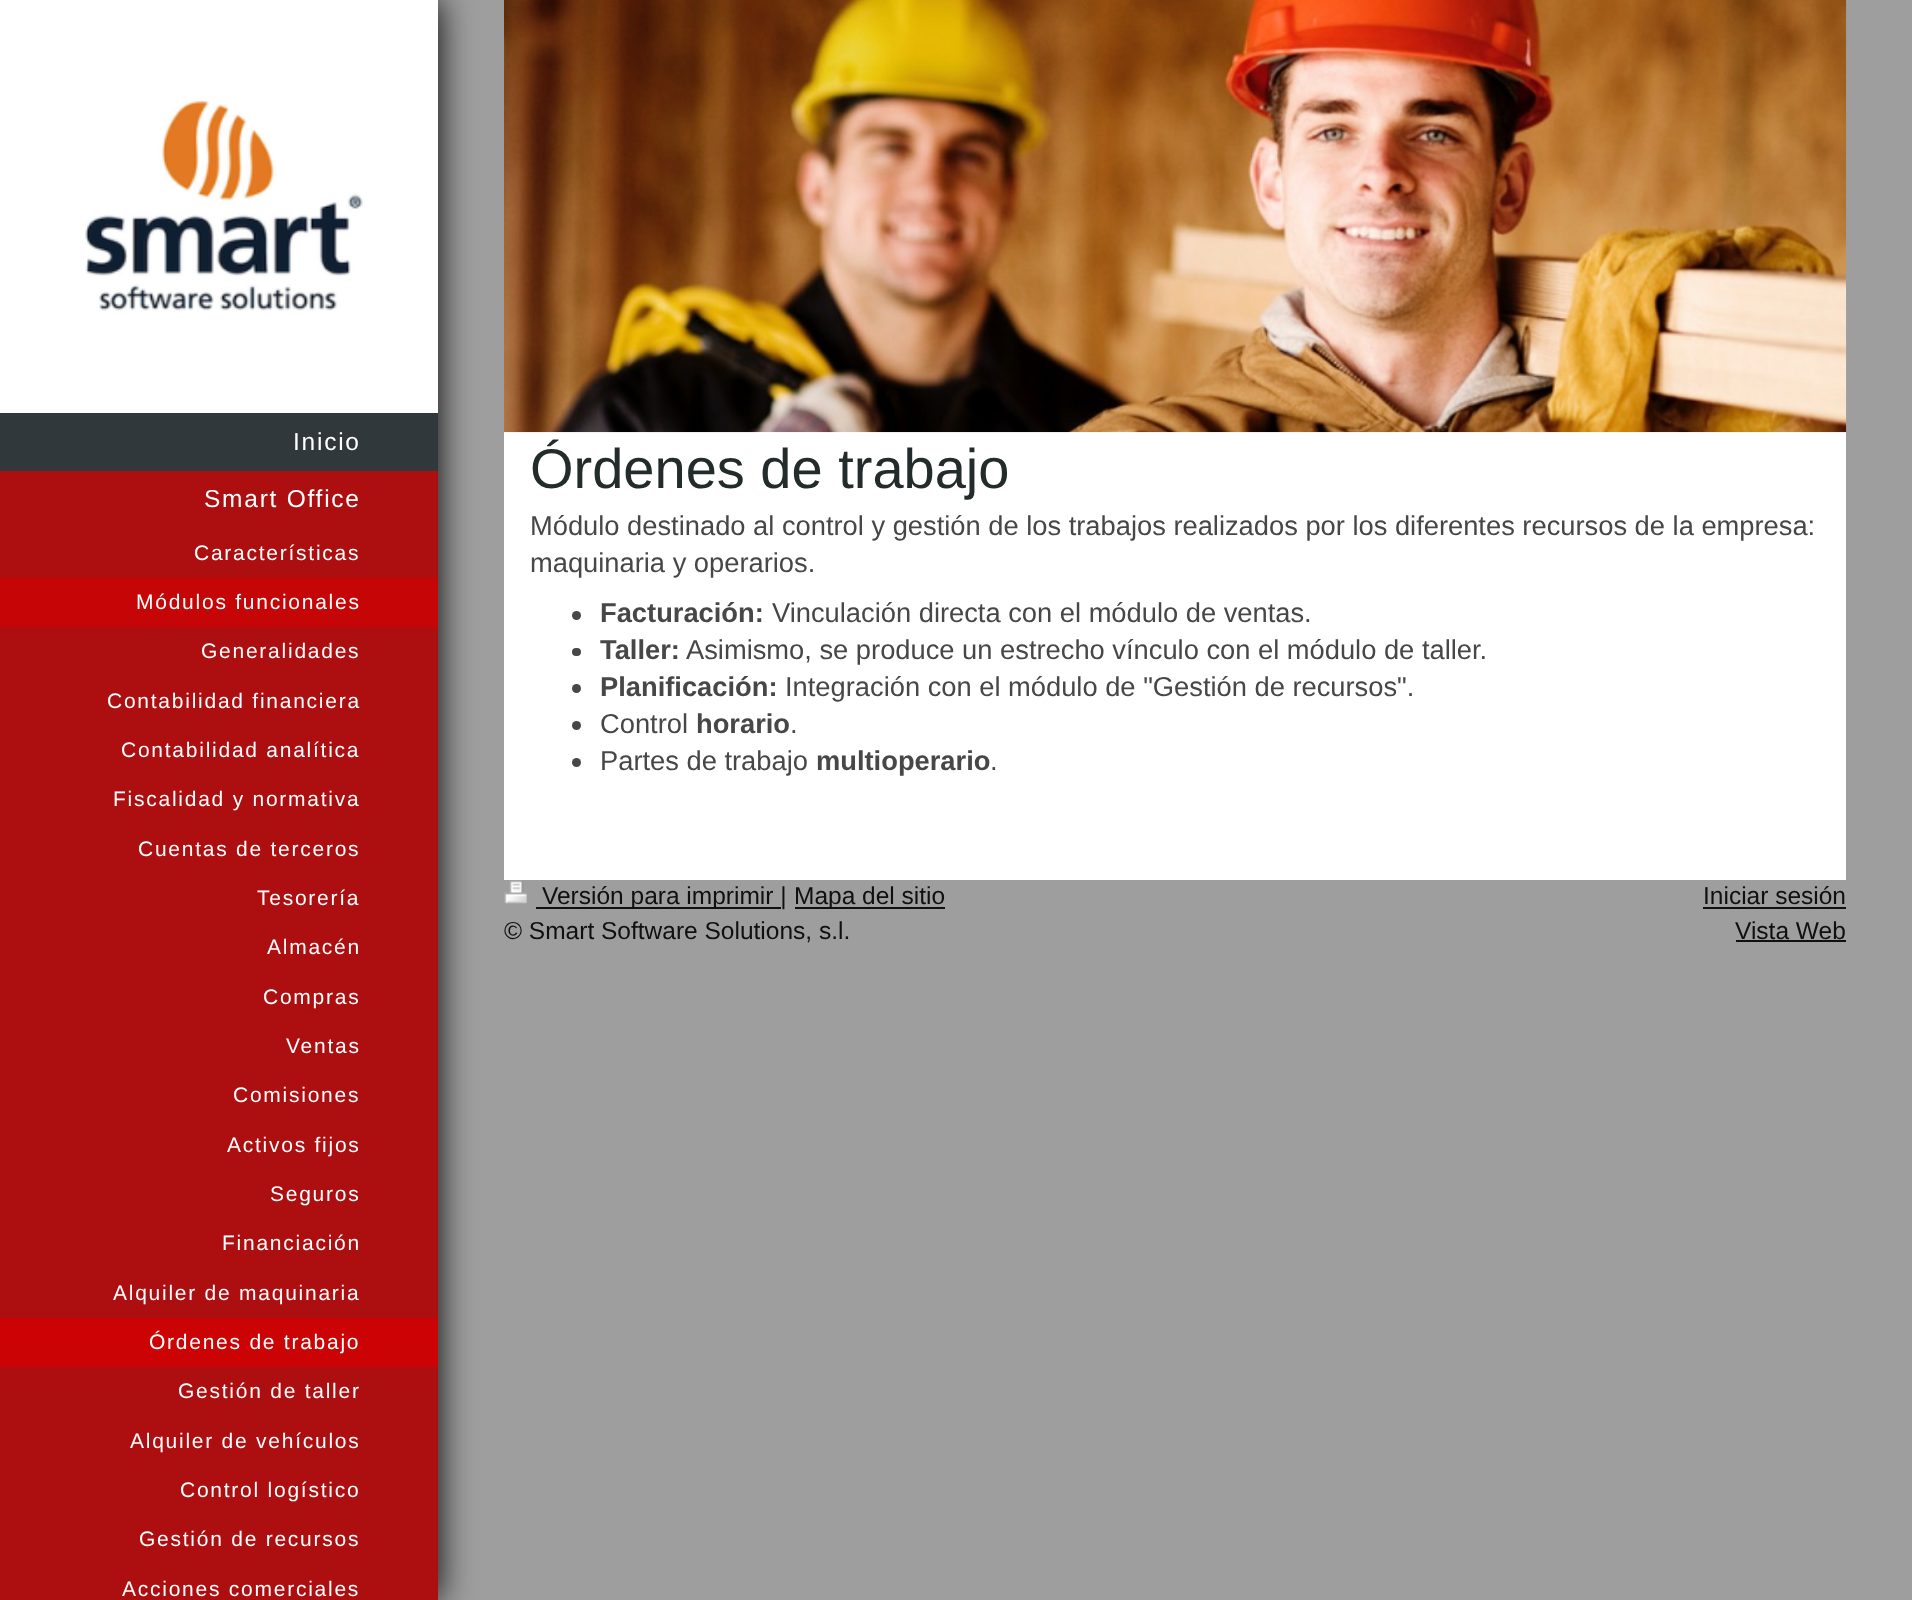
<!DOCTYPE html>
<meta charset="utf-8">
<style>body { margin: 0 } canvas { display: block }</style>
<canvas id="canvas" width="1912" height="1600"></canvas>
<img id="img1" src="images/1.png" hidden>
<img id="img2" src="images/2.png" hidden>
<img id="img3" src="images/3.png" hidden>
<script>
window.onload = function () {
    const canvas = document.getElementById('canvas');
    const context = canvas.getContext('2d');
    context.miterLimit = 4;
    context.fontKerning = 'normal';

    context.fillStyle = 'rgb(158, 158, 158)';
    context.fillRect(0, 0, 1912, 1600);
    context.fillStyle = 'rgb(0, 0, 0)';
    context.filter = 'blur(17.5px)';
    context.beginPath();
    context.rect(0, 0, 438, 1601);
    context.fill();
    context.filter = 'none';
    context.fillStyle = 'rgb(255, 255, 255)';
    context.fillRect(0, 0, 438, 413);
    context.drawImage(document.getElementById('img1'), 85, 99, 278, 212);
    context.fillStyle = 'rgb(48, 56, 60)';
    context.fillRect(0, 413, 438, 58);
    context.fillStyle = 'rgb(173, 14, 16)';
    context.fillRect(0, 471, 438, 1129);
    context.fillStyle = 'rgb(198, 5, 7)';
    context.fillRect(0, 578, 438, 49);
    context.fillStyle = 'rgb(204, 3, 5)';
    context.fillRect(0, 1318, 438, 49);
    context.fillStyle = 'rgb(255, 255, 255)';
    context.fillRect(504, 432, 1342, 448);
    context.drawImage(document.getElementById('img2'), 504, 0, 1343, 433);
    context.fillStyle = 'rgb(71, 71, 71)';
    context.beginPath();
    context.arc(576.5, 615.5, 4.5, 0, 2 * Math.PI);
    context.fill();
    context.beginPath();
    context.roundRect(572, 648, 9, 8, 4);
    context.fill();
    context.beginPath();
    context.arc(576.5, 688.5, 4.5, 0, 2 * Math.PI);
    context.fill();
    context.beginPath();
    context.arc(576.5, 725.5, 4.5, 0, 2 * Math.PI);
    context.fill();
    context.beginPath();
    context.arc(576.5, 762.5, 4.5, 0, 2 * Math.PI);
    context.fill();
    context.drawImage(document.getElementById('img3'), 504, 880, 23, 24);
    context.fillStyle = 'rgb(16, 16, 16)';
    context.fillRect(536, 907, 245, 2);
    context.fillRect(795, 907, 150, 2);
    context.fillRect(1703, 907, 143, 2);
    context.fillRect(1736, 940, 110, 2);
    context.letterSpacing = '1.75px';
    context.font = '24.5px Liberation Sans';
    context.fillStyle = 'rgb(255, 255, 255)';
    context.fillText('Inicio', 293, 450);
    context.fillText('Smart Office', 204, 507);
    context.font = '21px Liberation Sans';
    context.fillText('Características', 194, 560);
    context.fillText('Módulos funcionales', 136, 609);
    context.fillText('Generalidades', 201, 658);
    context.fillText('Contabilidad financiera', 107, 708);
    context.fillText('Contabilidad analítica', 121, 757);
    context.fillText('Fiscalidad y normativa', 113, 806);
    context.fillText('Cuentas de terceros', 138, 856);
    context.fillText('Tesorería', 257, 905);
    context.fillText('Almacén', 267, 954);
    context.fillText('Compras', 263, 1004);
    context.fillText('Ventas', 286, 1053);
    context.fillText('Comisiones', 233, 1102);
    context.fillText('Activos fijos', 227, 1152);
    context.fillText('Seguros', 270, 1201);
    context.fillText('Financiación', 222, 1250);
    context.fillText('Alquiler de maquinaria', 113, 1300);
    context.fillText('Órdenes de trabajo', 149, 1349);
    context.fillText('Gestión de taller', 178, 1398);
    context.fillText('Alquiler de vehículos', 130, 1448);
    context.fillText('Control logístico', 180, 1497);
    context.fillText('Gestión de recursos', 139, 1546);
    context.fillText('Acciones comerciales', 122, 1596);
    context.letterSpacing = '0px';
    context.font = '56px Liberation Sans';
    context.fillStyle = 'rgb(36, 43, 43)';
    context.fillText('Órdenes de trabajo', 530, 488);
    context.font = '27.3px Liberation Sans';
    context.fillStyle = 'rgb(71, 71, 71)';
    context.fillText('Módulo destinado al control y gestión de los trabajos realizados por los diferentes recursos de la empresa:', 530, 535);
    context.fillText('maquinaria y operarios.', 530, 572);
    context.font = 'bold 27.3px Liberation Sans';
    context.fillText('Facturación:', 600, 622);
    context.font = '27.3px Liberation Sans';
    context.fillText('Vinculación directa con el módulo de ventas.', 772, 622);
    context.font = 'bold 27.3px Liberation Sans';
    context.fillText('Taller:', 600, 659);
    context.font = '27.3px Liberation Sans';
    context.fillText('Asimismo, se produce un estrecho vínculo con el módulo de taller.', 686, 659);
    context.font = 'bold 27.3px Liberation Sans';
    context.fillText('Planificación:', 600, 696);
    context.font = '27.3px Liberation Sans';
    context.fillText('Integración con el módulo de "Gestión de recursos".', 785, 696);
    context.fillText('Control', 600, 733);
    context.font = 'bold 27.3px Liberation Sans';
    context.fillText('horario', 696, 733);
    context.font = '27.3px Liberation Sans';
    context.fillText('.', 790, 733);
    context.fillText('Partes de trabajo', 600, 770);
    context.font = 'bold 27.3px Liberation Sans';
    context.fillText('multioperario', 816, 770);
    context.font = '27.3px Liberation Sans';
    context.fillText('.', 990, 770);
    context.font = '24.5px Liberation Sans';
    context.fillStyle = 'rgb(16, 16, 16)';
    context.fillText('Versión para imprimir |', 542, 904);
    context.fillText('Mapa del sitio', 794, 904);
    context.fillText('© Smart Software Solutions, s.l.', 504, 939);
    context.fillText('Iniciar sesión', 1703, 904);
    context.fillText('Vista Web', 1735, 939);
};
</script>
